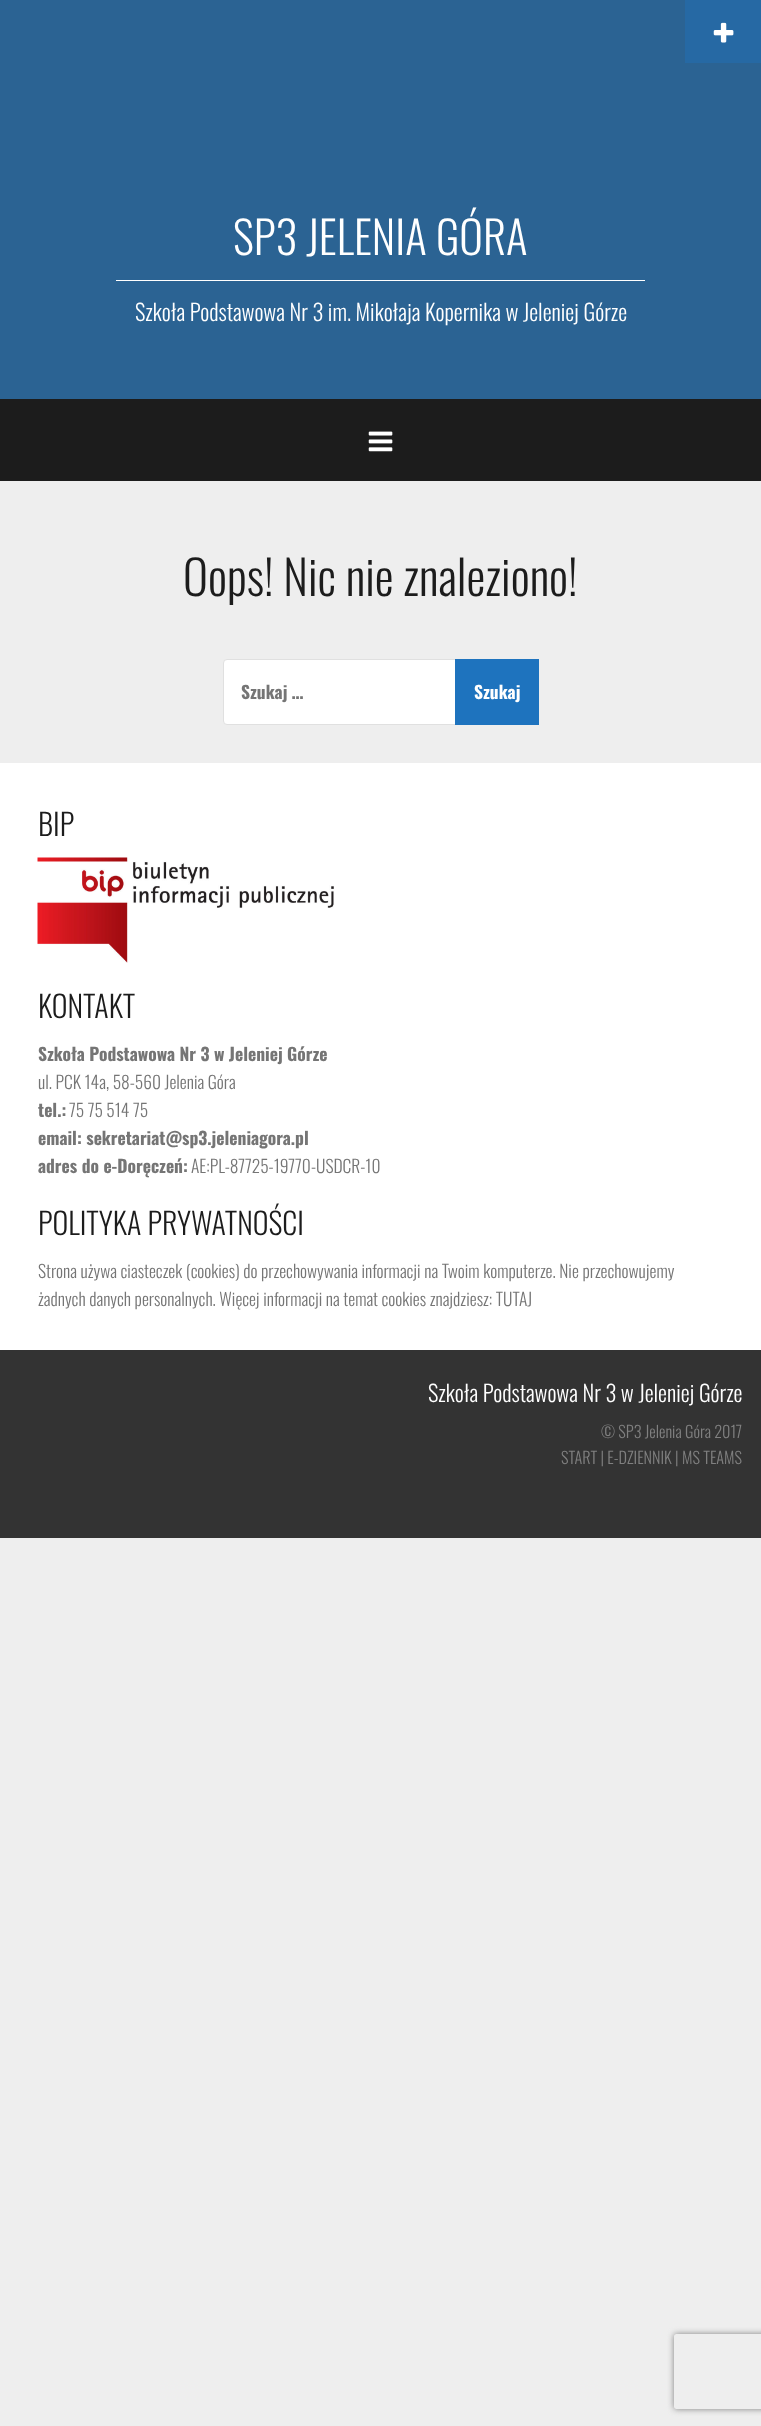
<!DOCTYPE html>
<meta charset="utf-8">
<style>body { margin: 0 } canvas { display: block }</style>
<canvas id="canvas" width="761" height="2426"></canvas>
<img id="img1" src="images/1.png" hidden>
<img id="img2" src="images/2.png" hidden>
<img id="img3" src="images/3.png" hidden>
<script>
window.onload = function () {
    const canvas = document.getElementById('canvas');
    const context = canvas.getContext('2d');
    context.miterLimit = 4;
    context.fontKerning = 'normal';

    context.fillStyle = 'rgb(238, 238, 238)';
    context.fillRect(0, 0, 761, 2426);
    context.fillStyle = 'rgb(43, 99, 147)';
    context.fillRect(0, 0, 761, 399);
    context.fillStyle = 'rgb(38, 105, 164)';
    context.fillRect(685, 0, 76, 63);
    context.drawImage(document.getElementById('img1'), 713, 22, 21, 21);
    context.fillStyle = 'rgb(255, 255, 255)';
    context.fillRect(116, 280, 529, 1);
    context.fillStyle = 'rgb(28, 28, 28)';
    context.fillRect(0, 399, 761, 82);
    context.drawImage(document.getElementById('img2'), 368, 431, 25, 21);
    context.fillStyle = 'rgb(255, 255, 255)';
    context.beginPath();
    context.roundRect(223.5, 659.5, 265, 65, 3.5);
    context.fill();
    context.strokeStyle = 'rgb(224, 224, 224)';
    context.stroke();
    context.fillStyle = 'rgb(30, 115, 190)';
    context.fillRect(455, 659, 84, 66);
    context.fillStyle = 'rgb(255, 255, 255)';
    context.fillRect(0, 763, 761, 587);
    context.drawImage(document.getElementById('img3'), 37, 857, 297, 106);
    context.fillStyle = 'rgb(51, 51, 51)';
    context.fillRect(0, 1350, 761, 188);
    context.save();
    context.beginPath();
    context.moveTo(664, 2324);
    context.lineTo(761, 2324);
    context.lineTo(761, 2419);
    context.lineTo(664, 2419);
    context.closePath();
    context.moveTo(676.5, 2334);
    context.lineTo(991.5, 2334);
    context.bezierCurveTo(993, 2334, 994, 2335, 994, 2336.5);
    context.lineTo(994, 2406.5);
    context.bezierCurveTo(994, 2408, 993, 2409, 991.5, 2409);
    context.lineTo(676.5, 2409);
    context.bezierCurveTo(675, 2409, 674, 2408, 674, 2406.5);
    context.lineTo(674, 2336.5);
    context.bezierCurveTo(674, 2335, 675, 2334, 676.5, 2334);
    context.closePath();
    context.clip('evenodd');
    context.fillStyle = 'rgb(128, 128, 128)';
    context.filter = 'blur(3px)';
    context.beginPath();
    context.roundRect(674, 2334, 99, 75, 2.5);
    context.fill();
    context.filter = 'none';
    context.restore();
    context.font = '300 45px Oswald';
    context.fillStyle = 'rgb(255, 255, 255)';
    context.fillText('SP3 JELENIA GÓRA', 233, 255);
    context.font = '300 22.5px Oswald';
    context.fillText('Szkoła Podstawowa Nr 3 im. Mikołaja Kopernika w Jeleniej Górze', 135, 321);
    context.font = '300 47.5px Oswald';
    context.fillStyle = 'rgb(28, 28, 28)';
    context.fillText('Oops! Nic nie znaleziono!', 183, 596);
    context.font = 'bold 17.5px Oswald';
    context.fillStyle = 'rgb(117, 117, 117)';
    context.fillText('Szukaj …', 241, 699);
    context.fillStyle = 'rgb(255, 255, 255)';
    context.fillText('Szukaj', 474, 699);
    context.font = '300 30px Oswald';
    context.fillStyle = 'rgb(28, 28, 28)';
    context.fillText('BIP', 38, 836);
    context.fillText('KONTAKT', 38, 1018);
    context.font = 'bold 17.5px Oswald';
    context.fillStyle = 'rgb(117, 117, 117)';
    context.fillText('Szkoła Podstawowa Nr 3 w Jeleniej Górze', 38, 1061);
    context.font = '300 17.5px Oswald';
    context.fillText('ul. PCK 14a, 58-560 Jelenia Góra', 38, 1089);
    context.font = 'bold 17.5px Oswald';
    context.fillText('tel.:', 38, 1117);
    context.font = '300 17.5px Oswald';
    context.fillText('75 75 514 75', 69, 1117);
    context.font = 'bold 17.5px Oswald';
    context.fillText('email: sekretariat@sp3.jeleniagora.pl', 38, 1145);
    context.fillText('adres do e-Doręczeń:', 38, 1173);
    context.font = '300 17.5px Oswald';
    context.fillText('AE:PL-87725-19770-USDCR-10', 191, 1173);
    context.font = '300 30px Oswald';
    context.fillStyle = 'rgb(28, 28, 28)';
    context.fillText('POLITYKA PRYWATNOŚCI', 38, 1235);
    context.font = '300 17.5px Oswald';
    context.fillStyle = 'rgb(117, 117, 117)';
    context.fillText('Strona używa ciasteczek (cookies) do przechowywania informacji na Twoim komputerze. Nie przechowujemy', 38, 1278);
    context.fillText('żadnych danych personalnych. Więcej informacji na temat cookies znajdziesz: TUTAJ', 38, 1306);
    context.font = '300 22.5px Oswald';
    context.fillStyle = 'rgb(255, 255, 255)';
    context.fillText('Szkoła Podstawowa Nr 3 w Jeleniej Górze', 428, 1402);
    context.font = '300 16.25px Oswald';
    context.fillStyle = 'rgb(128, 128, 128)';
    context.fillText('© SP3 Jelenia Góra 2017', 601, 1438);
    context.fillText('START | E-DZIENNIK | MS TEAMS', 561, 1464);
};
</script>
